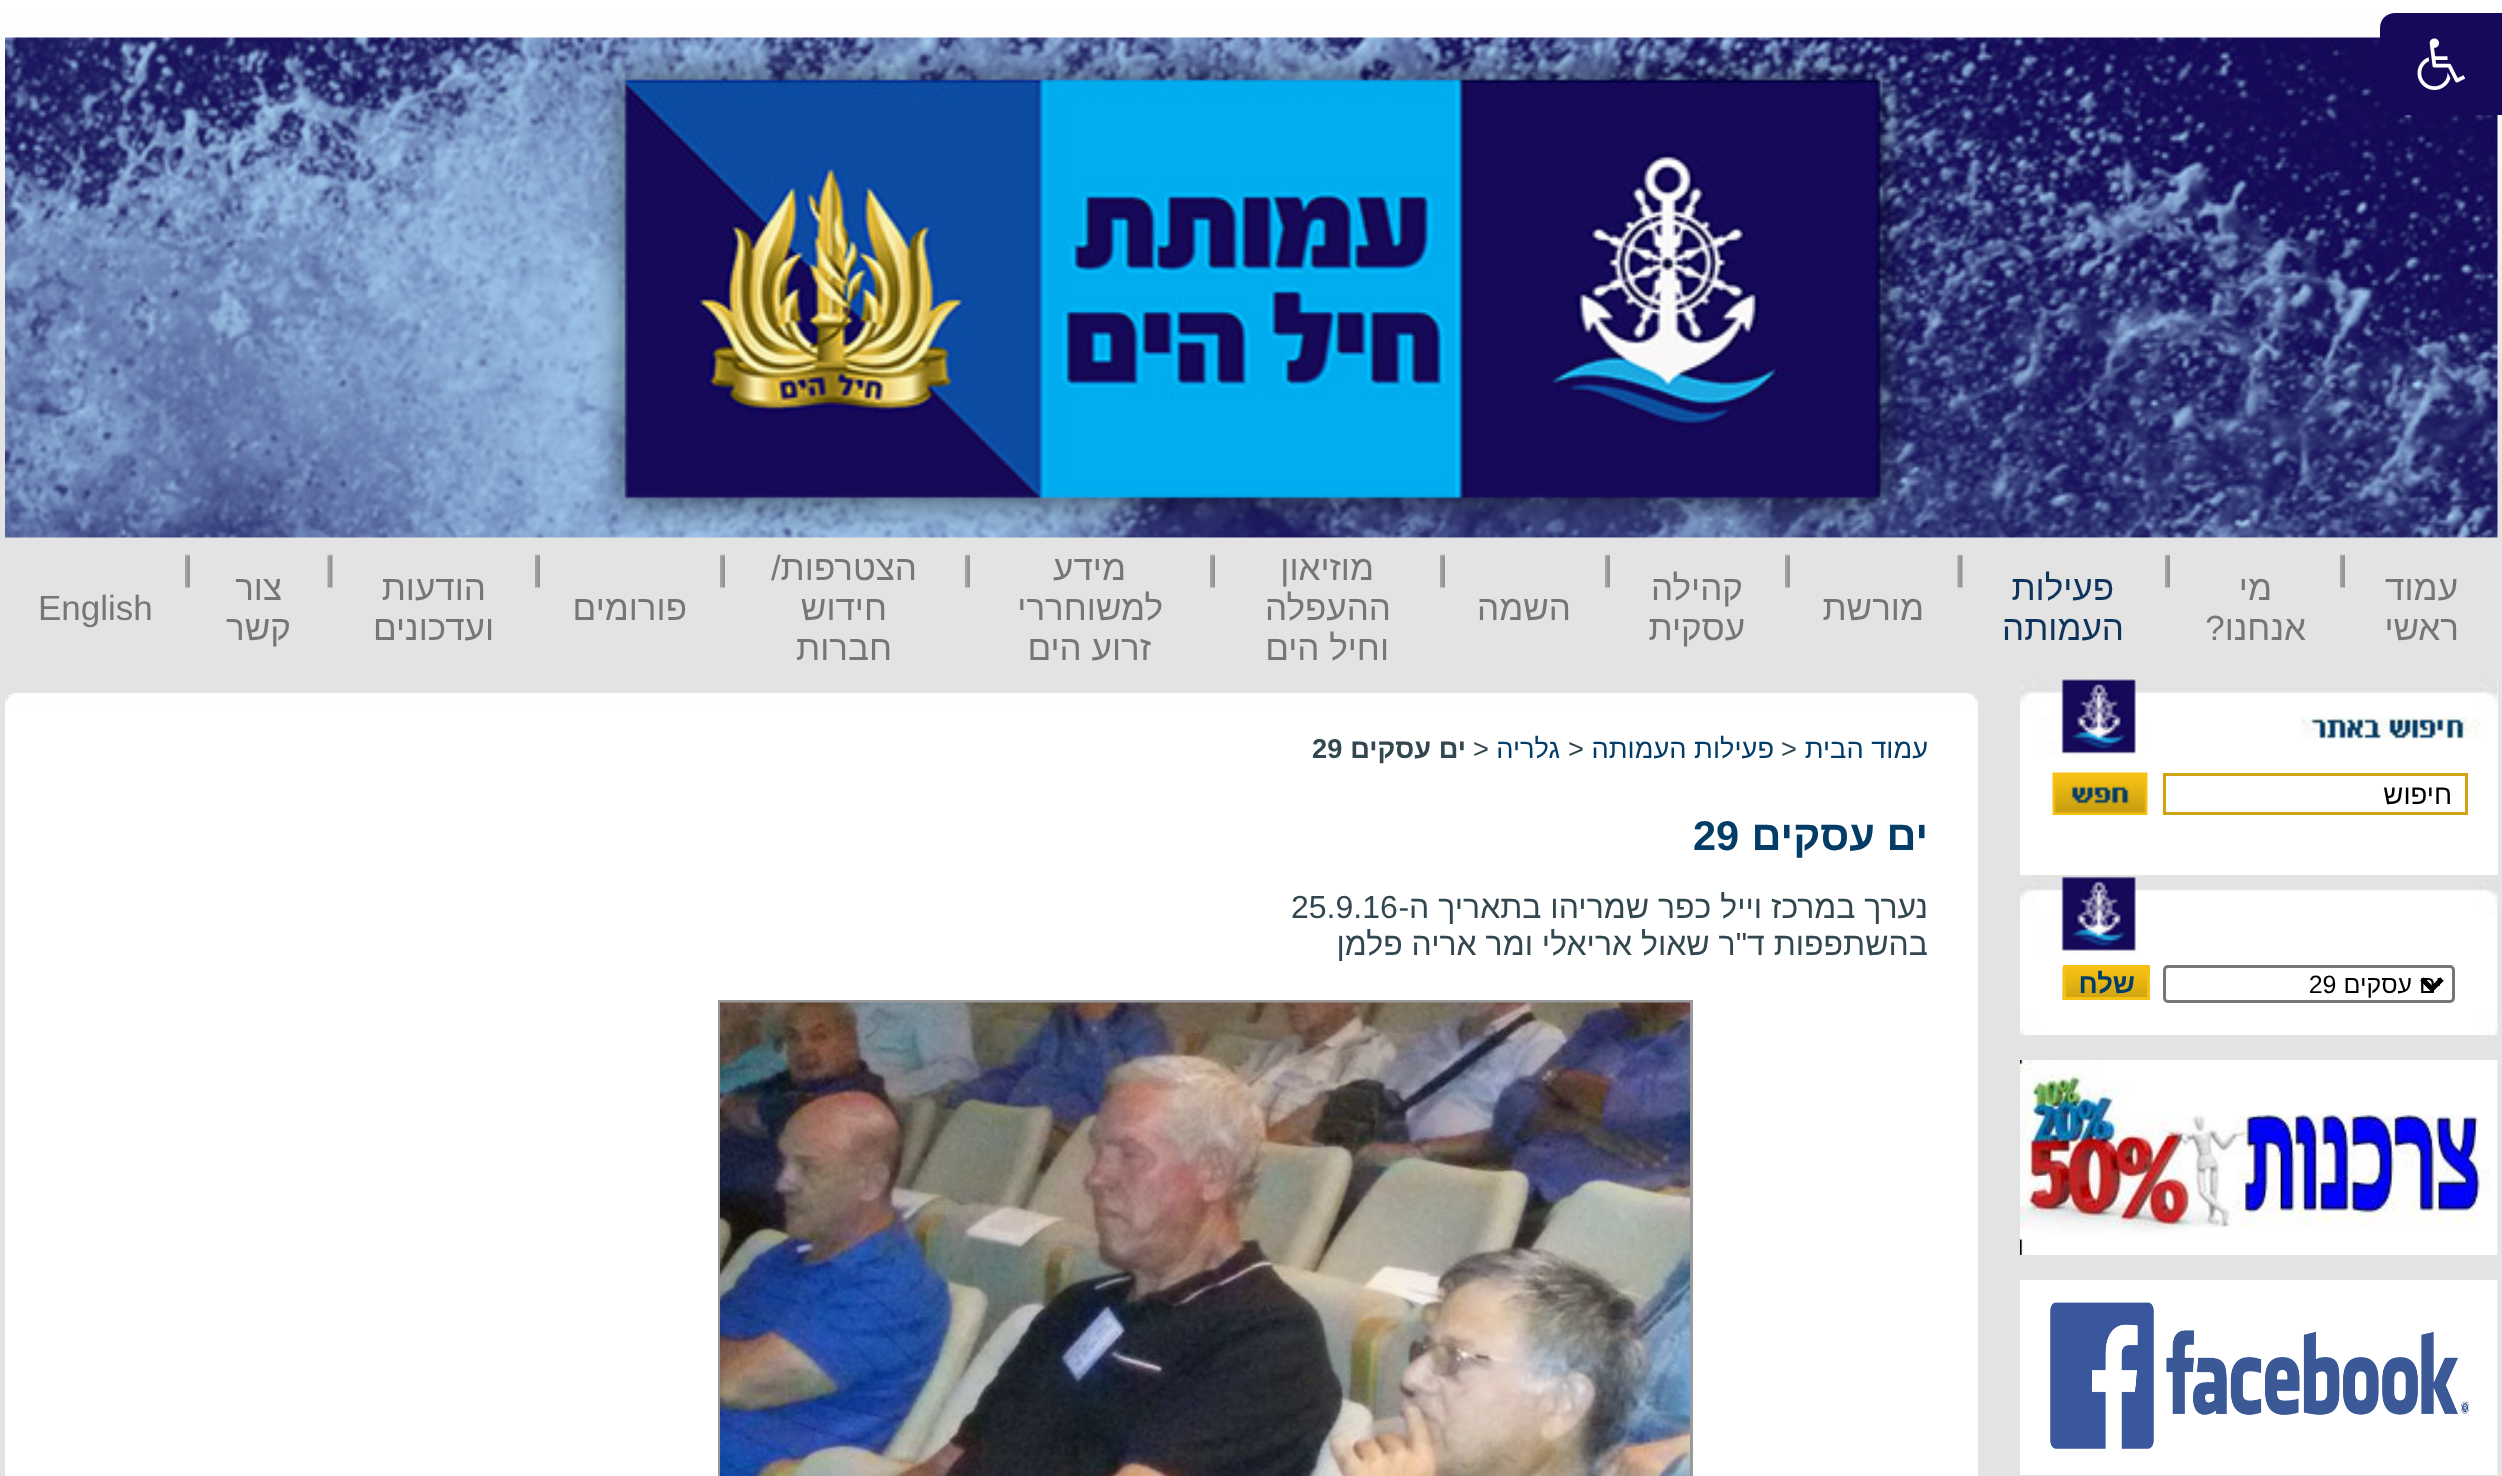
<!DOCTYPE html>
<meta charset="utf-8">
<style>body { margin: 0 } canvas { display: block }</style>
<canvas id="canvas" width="2502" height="1476"></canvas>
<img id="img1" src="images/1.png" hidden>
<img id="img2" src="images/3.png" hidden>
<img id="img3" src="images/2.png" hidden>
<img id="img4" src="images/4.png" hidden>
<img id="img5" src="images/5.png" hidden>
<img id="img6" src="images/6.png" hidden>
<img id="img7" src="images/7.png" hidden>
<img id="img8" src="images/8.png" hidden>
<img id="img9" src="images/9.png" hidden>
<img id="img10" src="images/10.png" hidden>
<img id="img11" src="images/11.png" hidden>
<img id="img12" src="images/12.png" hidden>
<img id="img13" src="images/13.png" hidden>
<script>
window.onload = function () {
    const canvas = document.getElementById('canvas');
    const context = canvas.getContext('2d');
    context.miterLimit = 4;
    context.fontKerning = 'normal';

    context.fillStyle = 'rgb(228, 227, 227)';
    context.fillRect(0, 0, 2502, 1476);
    context.drawImage(document.getElementById('img1'), 0, 0, 2502, 359);
    context.drawImage(document.getElementById('img2'), 5, 37, 2493, 501);
    context.fillStyle = 'rgb(22, 9, 89)';
    context.beginPath();
    context.moveTo(2395, 13);
    context.lineTo(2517, 13);
    context.lineTo(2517, 115);
    context.lineTo(2395, 115);
    context.bezierCurveTo(2386.5, 115, 2380, 108.5, 2380, 100);
    context.lineTo(2380, 28);
    context.bezierCurveTo(2380, 19.5, 2386.5, 13, 2395, 13);
    context.closePath();
    context.fill();
    context.drawImage(document.getElementById('img3'), 2417, 38, 49, 52);
    context.drawImage(document.getElementById('img4'), 2340, 554, 5, 34);
    context.drawImage(document.getElementById('img4'), 2165, 554, 5, 34);
    context.drawImage(document.getElementById('img5'), 1957, 554, 6, 34);
    context.drawImage(document.getElementById('img4'), 1785, 554, 5, 34);
    context.drawImage(document.getElementById('img4'), 1605, 554, 5, 34);
    context.drawImage(document.getElementById('img4'), 1440, 554, 5, 34);
    context.drawImage(document.getElementById('img4'), 1210, 554, 5, 34);
    context.drawImage(document.getElementById('img6'), 965, 554, 5, 34);
    context.drawImage(document.getElementById('img6'), 720, 554, 5, 34);
    context.drawImage(document.getElementById('img6'), 535, 554, 5, 34);
    context.drawImage(document.getElementById('img5'), 327, 554, 6, 34);
    context.drawImage(document.getElementById('img4'), 185, 554, 5, 34);
    context.fillStyle = 'rgb(255, 255, 255)';
    context.fillRect(2020, 678, 478, 197);
    context.drawImage(document.getElementById('img7'), 2020, 677, 478, 81);
    context.strokeStyle = 'rgb(207, 163, 17)';
    context.lineWidth = 3;
    context.strokeRect(2164.5, 774.5, 302, 39);
    context.drawImage(document.getElementById('img8'), 2052, 772, 96, 43);
    context.drawImage(document.getElementById('img9'), 2020, 875, 478, 160);
    context.beginPath();
    context.roundRect(2164.5, 966.5, 289, 35, 3.5);
    context.strokeStyle = 'rgb(118, 118, 118)';
    context.stroke();
    context.beginPath();
    context.moveTo(2422, 979);
    context.lineTo(2432, 989);
    context.lineTo(2442, 979);
    context.strokeStyle = 'rgb(0, 0, 0)';
    context.lineWidth = 5;
    context.stroke();
    context.drawImage(document.getElementById('img10'), 2062, 967, 85, 33);
    context.strokeStyle = 'rgb(247, 193, 20)';
    context.lineWidth = 3;
    context.strokeRect(2064.5, 966.5, 84, 32);
    context.drawImage(document.getElementById('img11'), 2020, 1060, 478, 195);
    context.drawImage(document.getElementById('img12'), 2020, 1280, 478, 195);
    context.fillRect(5, 706, 1973, 770);
    context.fillStyle = 'rgb(236, 235, 235)';
    context.fillRect(10, 693, 1963, 2);
    context.fillStyle = 'rgb(248, 248, 248)';
    context.fillRect(13, 693, 1957, 2);
    context.fillStyle = 'rgb(254, 254, 254)';
    context.fillRect(15, 693, 1953, 2);
    context.fillStyle = 'rgb(242, 241, 241)';
    context.fillRect(8, 695, 1967, 3);
    context.fillStyle = 'rgb(255, 255, 255)';
    context.fillRect(10, 695, 1963, 3);
    context.fillStyle = 'rgb(236, 235, 235)';
    context.fillRect(5, 698, 1973, 2);
    context.fillStyle = 'rgb(255, 255, 255)';
    context.fillRect(8, 698, 1967, 2);
    context.fillStyle = 'rgb(248, 248, 248)';
    context.fillRect(5, 700, 1973, 3);
    context.fillStyle = 'rgb(255, 255, 255)';
    context.fillRect(8, 700, 1967, 3);
    context.fillStyle = 'rgb(254, 254, 254)';
    context.fillRect(5, 703, 1973, 3);
    context.strokeStyle = 'rgb(154, 154, 154)';
    context.strokeRect(719.5, 1001.5, 972, 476);
    context.drawImage(document.getElementById('img13'), 720, 1002, 970, 474);
    context.direction = 'rtl';
    context.font = '35px Liberation Sans';
    context.fillStyle = 'rgb(119, 118, 118)';
    context.fillText('עמוד', 2458, 600);
    context.fillText('ראשי', 2459, 640);
    context.fillText('מי', 2272, 600);
    context.fillText('אנחנו?', 2306, 640);
    context.fillStyle = 'rgb(15, 52, 92)';
    context.fillText('פעילות', 2114, 600);
    context.fillText('העמותה', 2124, 640);
    context.fillStyle = 'rgb(119, 118, 118)';
    context.fillText('מורשת', 1924, 620);
    context.fillText('קהילה', 1743, 600);
    context.fillText('עסקית', 1745, 640);
    context.fillText('השמה', 1571, 620);
    context.fillText('מוזיאון', 1374, 580);
    context.fillText('ההעפלה', 1391, 620);
    context.fillText('וחיל הים', 1389, 660);
    context.fillText('מידע', 1126, 580);
    context.fillText('למשוחררי', 1163, 620);
    context.fillText('זרוע הים', 1151, 660);
    context.fillText('הצטרפות/', 917, 580);
    context.fillText('חידוש', 887, 620);
    context.fillText('חברות', 892, 660);
    context.fillText('פורומים', 687, 620);
    context.fillText('הודעות', 486, 600);
    context.fillText('ועדכונים', 494, 640);
    context.fillText('צור', 282, 600);
    context.fillText('קשר', 291, 640);
    context.direction = 'ltr';
    context.fillText('English', 38, 620);
    context.direction = 'rtl';
    context.font = '27.5px Liberation Sans';
    context.fillStyle = 'rgb(0, 0, 0)';
    context.fillText('חיפוש', 2452, 804);
    context.font = '25px Liberation Sans';
    context.fillText('ים עסקים 29', 2442, 993);
    context.font = 'bold 27.5px Liberation Sans';
    context.fillStyle = 'rgb(2, 60, 103)';
    context.fillText('שלח', 2135, 993);
    context.font = '27.25px Liberation Sans';
    context.fillText('עמוד הבית', 1928, 758);
    context.direction = 'ltr';
    context.fillStyle = 'rgb(50, 71, 80)';
    context.fillText('>', 1781, 758);
    context.direction = 'rtl';
    context.fillStyle = 'rgb(2, 60, 103)';
    context.fillText('פעילות העמותה', 1774, 758);
    context.direction = 'ltr';
    context.fillStyle = 'rgb(50, 71, 80)';
    context.fillText('>', 1568, 758);
    context.direction = 'rtl';
    context.fillStyle = 'rgb(2, 60, 103)';
    context.fillText('גלריה', 1560, 758);
    context.direction = 'ltr';
    context.fillStyle = 'rgb(50, 71, 80)';
    context.fillText('>', 1473, 758);
    context.direction = 'rtl';
    context.font = 'bold 27.25px Liberation Sans';
    context.fillText('ים עסקים', 1466, 758);
    context.direction = 'ltr';
    context.fillText('29', 1312, 758);
    context.direction = 'rtl';
    context.font = 'bold 41.5px Liberation Sans';
    context.fillStyle = 'rgb(2, 60, 103)';
    context.fillText('ים עסקים', 1928, 850);
    context.direction = 'ltr';
    context.fillText('29', 1693, 850);
    context.direction = 'rtl';
    context.font = '32px Liberation Sans';
    context.fillStyle = 'rgb(50, 71, 80)';
    context.fillText('נערך במרכז וייל כפר שמריהו בתאריך ה-', 1928, 918);
    context.direction = 'ltr';
    context.fillText('25.9.16', 1291, 918);
    context.direction = 'rtl';
    context.fillText('בהשתפפות ד"ר שאול אריאלי ומר אריה פלמן', 1928, 955);
};
</script>
